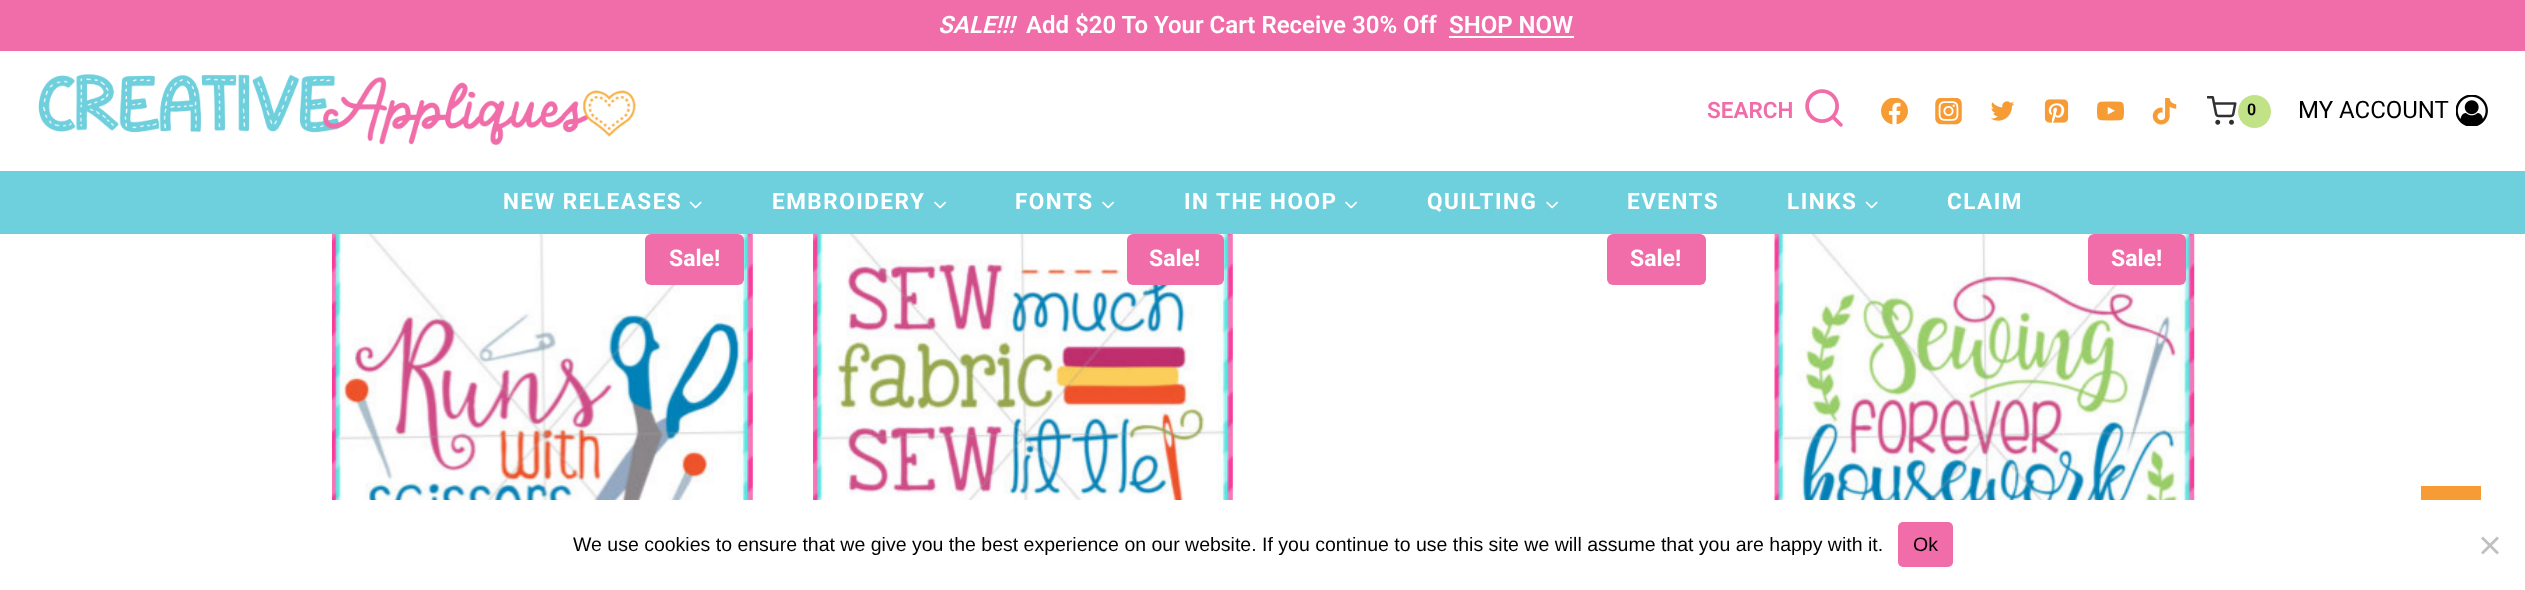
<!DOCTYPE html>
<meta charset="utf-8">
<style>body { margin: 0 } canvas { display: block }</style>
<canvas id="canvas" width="2525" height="590"></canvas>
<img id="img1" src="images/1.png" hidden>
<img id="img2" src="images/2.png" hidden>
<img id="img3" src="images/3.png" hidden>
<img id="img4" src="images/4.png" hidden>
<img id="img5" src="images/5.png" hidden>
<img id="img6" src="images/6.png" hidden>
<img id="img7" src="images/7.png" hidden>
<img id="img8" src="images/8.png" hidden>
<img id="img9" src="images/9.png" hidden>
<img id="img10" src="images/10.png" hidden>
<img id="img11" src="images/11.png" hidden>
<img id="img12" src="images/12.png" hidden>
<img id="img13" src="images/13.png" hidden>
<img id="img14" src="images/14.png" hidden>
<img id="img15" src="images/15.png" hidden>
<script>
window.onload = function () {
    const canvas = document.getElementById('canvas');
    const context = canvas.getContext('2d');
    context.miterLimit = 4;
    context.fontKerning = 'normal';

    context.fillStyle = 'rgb(255, 255, 255)';
    context.fillRect(0, 0, 2525, 590);
    context.fillStyle = 'rgb(240, 109, 169)';
    context.fillRect(0, 0, 2525, 51);
    context.fillStyle = 'rgb(255, 255, 255)';
    context.fillRect(1449, 36, 125, 2);
    context.drawImage(document.getElementById('img1'), 38, 74, 598, 72);
    context.drawImage(document.getElementById('img2'), 1805, 89, 38, 38);
    context.drawImage(document.getElementById('img3'), 1881, 98, 27, 27);
    context.drawImage(document.getElementById('img4'), 1935, 98, 27, 27);
    context.drawImage(document.getElementById('img5'), 1990, 101, 25, 20);
    context.drawImage(document.getElementById('img6'), 2044, 99, 25, 24);
    context.drawImage(document.getElementById('img7'), 2097, 101, 27, 20);
    context.drawImage(document.getElementById('img8'), 2152, 98, 25, 27);
    context.drawImage(document.getElementById('img9'), 2207, 96, 30, 29);
    context.fillStyle = 'rgb(193, 226, 135)';
    context.beginPath();
    context.arc(2254.5, 111.5, 16.5, 0, 2 * Math.PI);
    context.fill();
    context.drawImage(document.getElementById('img10'), 2456, 95, 32, 31);
    context.fillStyle = 'rgb(111, 208, 221)';
    context.fillRect(0, 171, 2525, 63);
    context.drawImage(document.getElementById('img11'), 689, 201, 13, 8);
    context.drawImage(document.getElementById('img12'), 934, 201, 12, 8);
    context.drawImage(document.getElementById('img12'), 1102, 201, 12, 8);
    context.drawImage(document.getElementById('img12'), 1345, 201, 12, 8);
    context.drawImage(document.getElementById('img12'), 1546, 201, 12, 8);
    context.drawImage(document.getElementById('img11'), 1865, 201, 13, 8);
    context.drawImage(document.getElementById('img13'), 332, 234, 421, 266);
    context.fillStyle = 'rgb(240, 109, 169)';
    context.beginPath();
    context.roundRect(645, 234, 99, 51, 6);
    context.fill();
    context.drawImage(document.getElementById('img14'), 813, 234, 420, 266);
    context.beginPath();
    context.roundRect(1127, 234, 97, 51, 6);
    context.fill();
    context.beginPath();
    context.roundRect(1607, 234, 99, 51, 6);
    context.fill();
    context.drawImage(document.getElementById('img15'), 1774, 234, 421, 266);
    context.beginPath();
    context.roundRect(2088, 234, 98, 51, 6);
    context.fill();
    context.fillStyle = 'rgb(247, 156, 53)';
    context.fillRect(2421, 486, 60, 14);
    context.fillStyle = 'rgb(240, 109, 169)';
    context.beginPath();
    context.roundRect(1898, 522, 55, 45, 5);
    context.fill();
    context.fillStyle = 'rgb(192, 192, 192)';
    context.beginPath();
    context.moveTo(2497, 536.5);
    context.lineTo(2499, 538.5);
    context.lineTo(2483, 554.5);
    context.lineTo(2481, 552.5);
    context.closePath();
    context.fill();
    context.beginPath();
    context.moveTo(2481, 538.5);
    context.lineTo(2483, 536.5);
    context.lineTo(2499, 552.5);
    context.lineTo(2497, 554.5);
    context.closePath();
    context.fill();
    context.font = 'italic 600 24px Roboto';
    context.fillStyle = 'rgb(255, 255, 255)';
    context.fillText('SALE!!!', 938, 33);
    context.font = '600 24px Roboto';
    context.fillText('Add $20 To Your Cart Receive 30% Off', 1026, 33);
    context.fillText('SHOP NOW', 1449, 33);
    context.font = '600 22.5px Roboto';
    context.fillStyle = 'rgb(240, 109, 169)';
    context.fillText('SEARCH', 1707, 118);
    context.letterSpacing = '5px';
    context.font = '600 16px Roboto';
    context.fillStyle = 'rgb(0, 0, 0)';
    context.fillText('0', 2247, 115);
    context.letterSpacing = '0px';
    context.font = '24px Roboto';
    context.fillText('MY ACCOUNT', 2298, 118);
    context.letterSpacing = '1.5px';
    context.font = 'bold 22.5px Roboto';
    context.fillStyle = 'rgb(255, 255, 255)';
    context.fillText('NEW RELEASES', 503, 209);
    context.fillText('EMBROIDERY', 772, 209);
    context.fillText('FONTS', 1015, 209);
    context.fillText('IN THE HOOP', 1184, 209);
    context.fillText('QUILTING', 1427, 209);
    context.fillText('EVENTS', 1627, 209);
    context.fillText('LINKS', 1787, 209);
    context.fillText('CLAIM', 1947, 209);
    context.letterSpacing = '0px';
    context.font = 'bold 23px Roboto';
    context.fillText('Sale!', 669, 266);
    context.fillText('Sale!', 1149, 266);
    context.fillText('Sale!', 1630, 266);
    context.fillText('Sale!', 2111, 266);
    context.font = '19.5px Liberation Sans';
    context.fillStyle = 'rgb(0, 0, 0)';
    context.fillText('We use cookies to ensure that we give you the best experience on our website. If you continue to use this site we will assume that you are happy with it.', 573, 551);
    context.fillText('Ok', 1913, 551);
};
</script>
